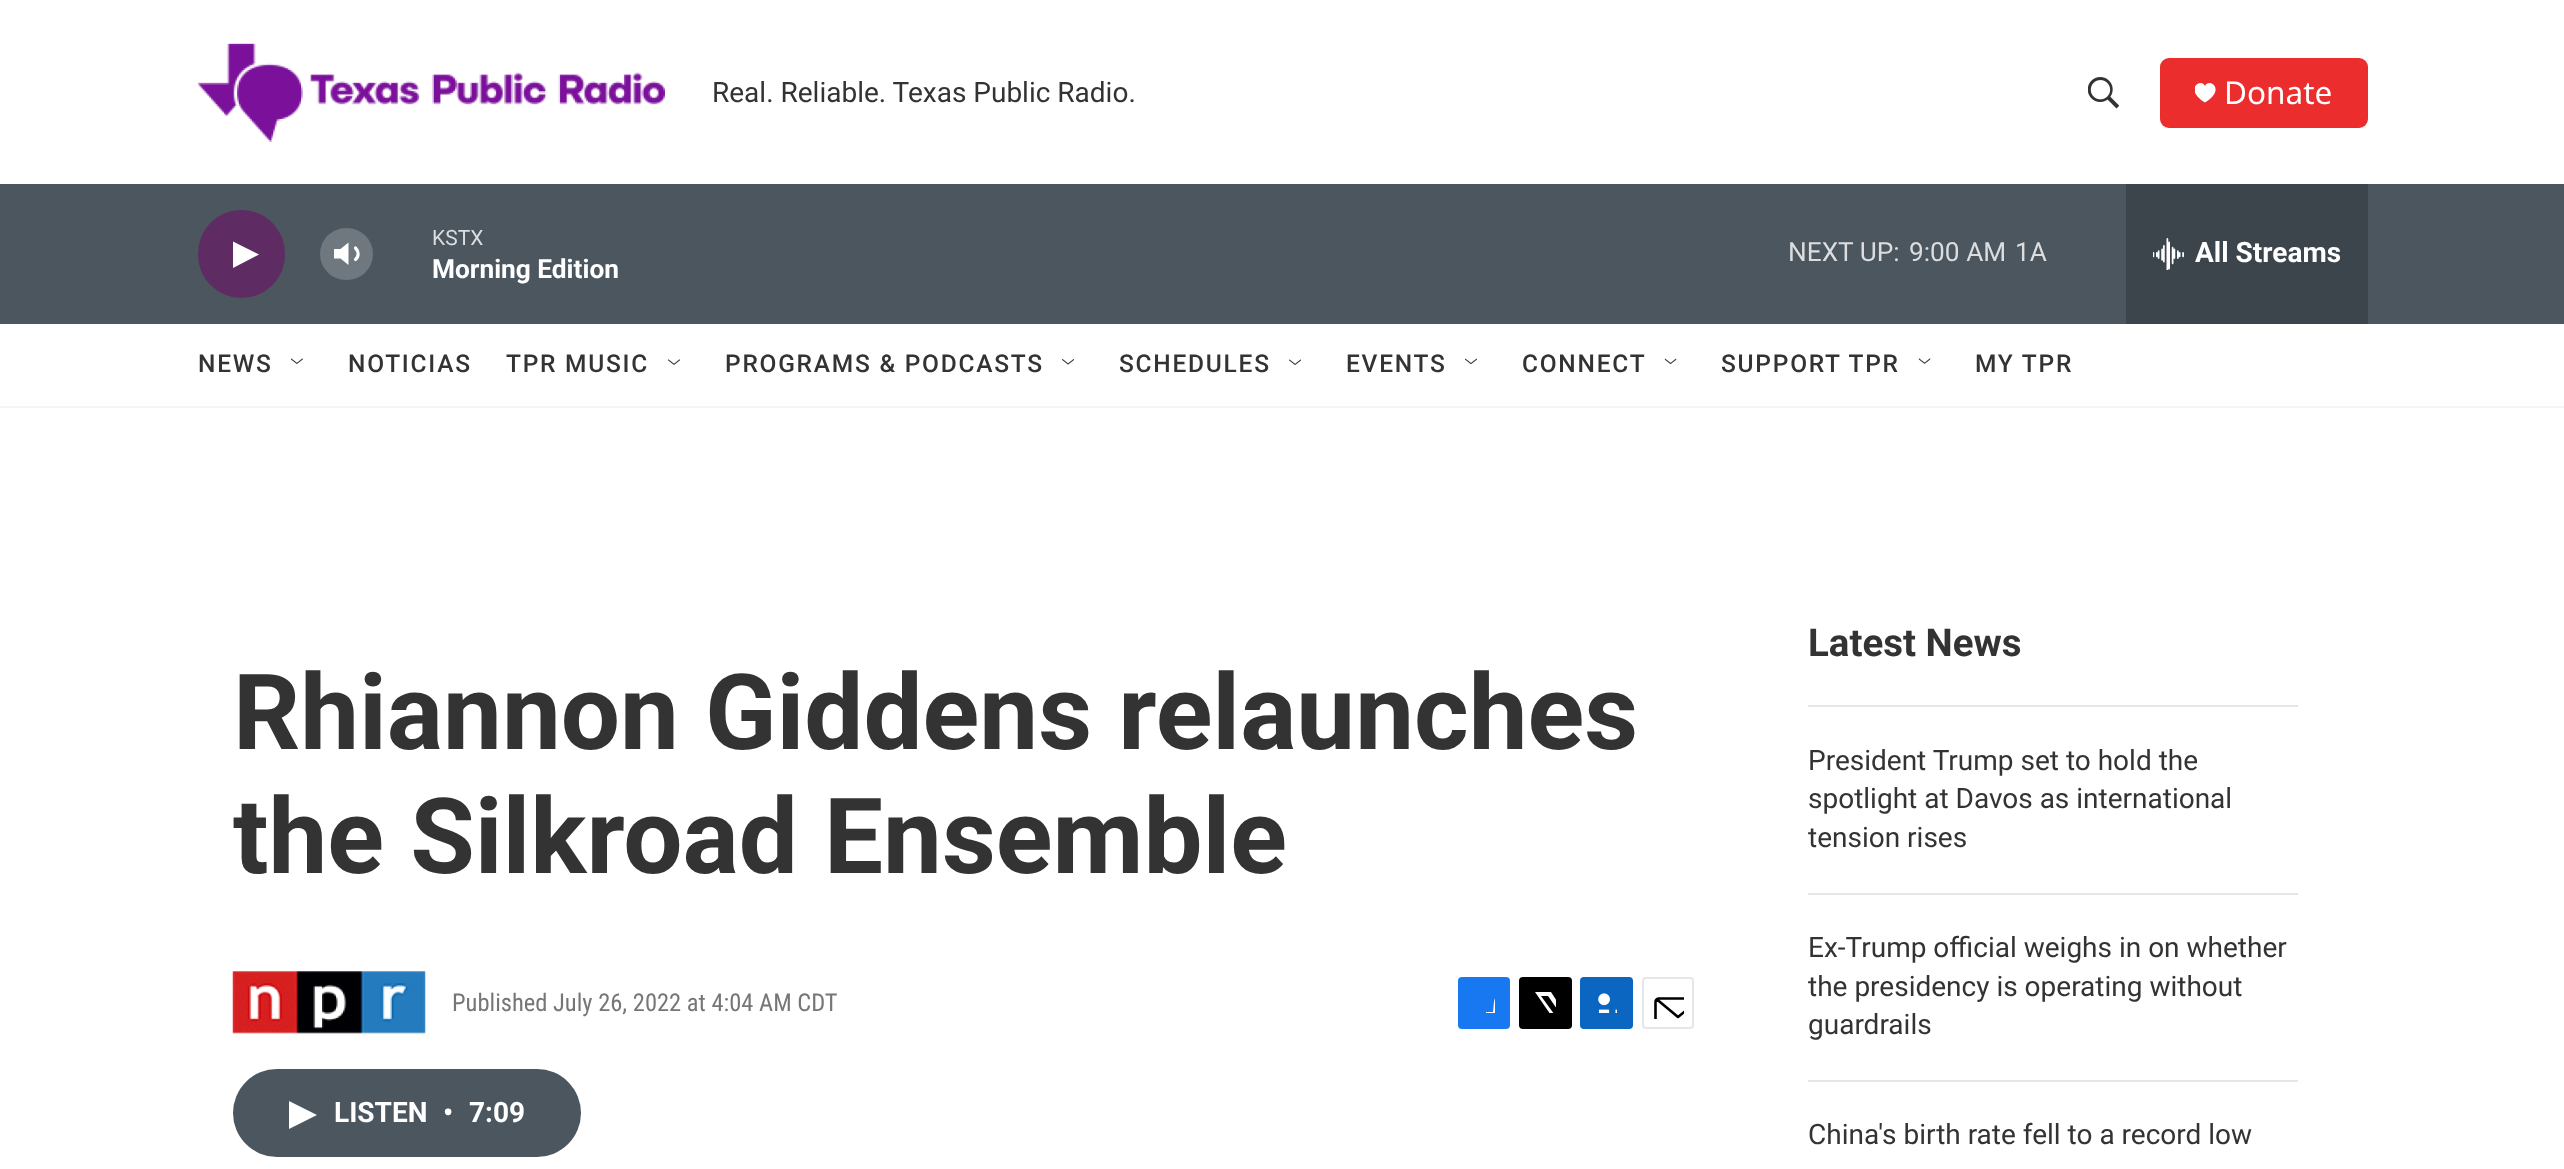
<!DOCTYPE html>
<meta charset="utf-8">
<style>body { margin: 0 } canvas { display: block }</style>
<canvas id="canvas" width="2564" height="1169"></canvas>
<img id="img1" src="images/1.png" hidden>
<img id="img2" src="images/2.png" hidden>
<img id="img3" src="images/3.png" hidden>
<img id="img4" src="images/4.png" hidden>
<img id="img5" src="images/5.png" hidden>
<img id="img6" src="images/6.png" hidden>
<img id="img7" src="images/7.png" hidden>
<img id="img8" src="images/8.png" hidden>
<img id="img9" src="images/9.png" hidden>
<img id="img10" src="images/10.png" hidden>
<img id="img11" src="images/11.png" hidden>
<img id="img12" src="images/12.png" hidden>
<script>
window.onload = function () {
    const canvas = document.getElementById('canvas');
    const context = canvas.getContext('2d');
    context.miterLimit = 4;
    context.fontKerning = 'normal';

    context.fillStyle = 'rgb(255, 255, 255)';
    context.fillRect(0, 0, 2564, 1169);
    context.fillStyle = 'rgb(245, 245, 245)';
    context.fillRect(0, 406, 2564, 2);
    context.drawImage(document.getElementById('img1'), 198, 43, 467, 99);
    context.drawImage(document.getElementById('img2'), 2088, 77, 31, 32);
    context.fillStyle = 'rgb(236, 45, 45)';
    context.beginPath();
    context.roundRect(2160, 58, 208, 70, 9);
    context.fill();
    context.save();
    context.beginPath();
    context.rect(2195, 82, 21, 21);
    context.clip();
    context.fillStyle = 'rgb(255, 255, 255)';
    context.beginPath();
    context.moveTo(2205, 86);
    context.bezierCurveTo(2201.5, 77, 2183, 89, 2205, 102.5);
    context.bezierCurveTo(2227, 89, 2208.5, 77, 2205, 86);
    context.closePath();
    context.fill();
    context.restore();
    context.fillStyle = 'rgb(75, 86, 95)';
    context.fillRect(0, 184, 2564, 140);
    context.fillStyle = 'rgb(94, 43, 99)';
    context.beginPath();
    context.roundRect(198, 210, 87, 88, 43.5);
    context.fill();
    context.fillStyle = 'rgb(255, 255, 255)';
    context.beginPath();
    context.moveTo(233, 241.5);
    context.lineTo(259, 254.5);
    context.lineTo(233, 268);
    context.closePath();
    context.fill();
    context.beginPath();
    context.moveTo(348.5, 242.5);
    context.lineTo(340.5, 249);
    context.lineTo(334, 249);
    context.lineTo(334, 258.5);
    context.lineTo(340.5, 258.5);
    context.lineTo(348.5, 265);
    context.closePath();
    context.fill();
    context.beginPath();
    context.moveTo(355.5, 248);
    context.bezierCurveTo(359, 251.5, 359, 256.5, 355.5, 259.5);
    context.strokeStyle = 'rgb(255, 255, 255)';
    context.lineWidth = 3.2;
    context.lineCap = 'round';
    context.lineJoin = 'round';
    context.stroke();
    context.fillStyle = 'rgba(255, 255, 255, 0.2)';
    context.beginPath();
    context.roundRect(320, 228, 53, 52, 26);
    context.fill();
    context.fillStyle = 'rgb(60, 69, 76)';
    context.fillRect(2126, 184, 242, 140);
    context.drawImage(document.getElementById('img3'), 2153, 238, 31, 32);
    context.drawImage(document.getElementById('img4'), 291, 358, 12, 6);
    context.drawImage(document.getElementById('img5'), 668, 359, 12, 6);
    context.drawImage(document.getElementById('img6'), 1062, 359, 12, 6);
    context.drawImage(document.getElementById('img7'), 1289, 359, 12, 6);
    context.drawImage(document.getElementById('img8'), 1465, 358, 12, 7);
    context.drawImage(document.getElementById('img9'), 1664, 358, 13, 6);
    context.drawImage(document.getElementById('img10'), 1918, 358, 13, 6);
    context.drawImage(document.getElementById('img11'), 232, 971, 194, 63);
    context.fillStyle = 'rgb(23, 120, 242)';
    context.beginPath();
    context.roundRect(1458, 977, 52, 52, 4);
    context.fill();
    context.save();
    context.beginPath();
    context.rect(1474, 992, 21, 21);
    context.clip();
    context.fillStyle = 'rgb(255, 255, 255)';
    context.beginPath();
    context.moveTo(1503, 1029);
    context.lineTo(1493, 1029);
    context.lineTo(1493, 1020);
    context.lineTo(1486, 1020);
    context.lineTo(1486, 1012);
    context.lineTo(1493, 1012);
    context.lineTo(1494, 1002);
    context.bezierCurveTo(1495, 993.5, 1502.5, 992, 1510, 993);
    context.lineTo(1510, 1001);
    context.bezierCurveTo(1502.5, 1001, 1502.5, 1002, 1503, 1008);
    context.lineTo(1503, 1012);
    context.lineTo(1510, 1012);
    context.lineTo(1510, 1020);
    context.lineTo(1503, 1020);
    context.closePath();
    context.fill();
    context.restore();
    context.fillStyle = 'rgb(0, 0, 0)';
    context.beginPath();
    context.roundRect(1519, 977, 53, 52, 4);
    context.fill();
    context.save();
    context.beginPath();
    context.rect(1535, 992, 21, 21);
    context.clip();
    context.fillStyle = 'rgb(255, 255, 255)';
    context.beginPath();
    context.moveTo(1566, 1014);
    context.lineTo(1572, 1023);
    context.bezierCurveTo(1572, 1024.5, 1572, 1026.5, 1570.5, 1028);
    context.lineTo(1548, 996);
    context.lineTo(1541, 996);
    context.lineTo(1565, 1029);
    context.lineTo(1560.5, 1029);
    context.lineTo(1557, 1024);
    context.lineTo(1553, 1029);
    context.lineTo(1548.5, 1029);
    context.lineTo(1555, 1021);
    context.lineTo(1535, 992);
    context.lineTo(1551, 992);
    context.lineTo(1564, 1012);
    context.lineTo(1572, 1002);
    context.lineTo(1572, 1007);
    context.closePath();
    context.fill();
    context.restore();
    context.fillStyle = 'rgb(10, 102, 193)';
    context.beginPath();
    context.roundRect(1580, 977, 53, 52, 4);
    context.fill();
    context.drawImage(document.getElementById('img12'), 1598, 993, 19, 20);
    context.beginPath();
    context.roundRect(1643, 978, 50, 50, 3);
    context.strokeStyle = 'rgb(230, 230, 230)';
    context.lineWidth = 2;
    context.lineJoin = 'miter';
    context.stroke();
    context.save();
    context.beginPath();
    context.rect(1652, 987, 32, 32);
    context.clip();
    context.beginPath();
    context.moveTo(1701, 1025.5);
    context.bezierCurveTo(1701, 1027, 1699.5, 1028.5, 1697.5, 1028.5);
    context.lineTo(1659, 1028.5);
    context.bezierCurveTo(1657, 1028.5, 1655.5, 1027, 1655.5, 1025.5);
    context.lineTo(1655.5, 1002);
    context.bezierCurveTo(1655.5, 1000, 1657, 998.5, 1659, 998.5);
    context.lineTo(1697.5, 998.5);
    context.bezierCurveTo(1699.5, 998.5, 1701, 1000, 1701, 1002);
    context.closePath();
    context.moveTo(1699.5, 999.5);
    context.lineTo(1678, 1017);
    context.lineTo(1657, 999.5);
    context.strokeStyle = 'rgb(0, 0, 0)';
    context.lineWidth = 2.6;
    context.lineJoin = 'round';
    context.stroke();
    context.restore();
    context.fillStyle = 'rgb(75, 86, 95)';
    context.beginPath();
    context.roundRect(233, 1069, 348, 88, 44);
    context.fill();
    context.fillStyle = 'rgb(255, 255, 255)';
    context.beginPath();
    context.moveTo(289, 1101);
    context.lineTo(317, 1115);
    context.lineTo(289, 1129);
    context.closePath();
    context.fill();
    context.fillStyle = 'rgb(230, 230, 230)';
    context.fillRect(1808, 705, 490, 2);
    context.fillRect(1808, 893, 490, 2);
    context.fillRect(1808, 1080, 490, 2);
    context.font = '28px Roboto';
    context.fillStyle = 'rgb(51, 51, 51)';
    context.fillText('Real. Reliable. Texas Public Radio.', 712, 102);
    context.font = '31.5px Noto Sans';
    context.fillStyle = 'rgb(255, 255, 255)';
    context.fillText('Donate', 2224, 104);
    context.font = '21px Roboto';
    context.fillStyle = 'rgb(219, 221, 223)';
    context.fillText('KSTX', 432, 245);
    context.font = 'bold 26.25px "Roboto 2"';
    context.fillStyle = 'rgb(255, 255, 255)';
    context.fillText('Morning Edition', 432, 278);
    context.font = '26.25px Roboto';
    context.fillStyle = 'rgb(219, 221, 223)';
    context.fillText('NEXT UP:', 1788, 261);
    context.fillText('9:00 AM', 1909, 261);
    context.fillText('1A', 2015, 261);
    context.font = 'bold 28px "Roboto 2"';
    context.fillStyle = 'rgb(255, 255, 255)';
    context.fillText('All Streams', 2195, 262);
    context.letterSpacing = '1.75px';
    context.font = '500 24.5px Roboto';
    context.fillStyle = 'rgb(51, 51, 51)';
    context.fillText('NEWS', 198, 372);
    context.fillText('NOTICIAS', 348, 372);
    context.fillText('TPR MUSIC', 506, 372);
    context.fillText('PROGRAMS & PODCASTS', 725, 372);
    context.fillText('SCHEDULES', 1119, 372);
    context.fillText('EVENTS', 1346, 372);
    context.fillText('CONNECT', 1522, 372);
    context.fillText('SUPPORT TPR', 1721, 372);
    context.fillText('MY TPR', 1975, 372);
    context.letterSpacing = '0px';
    context.font = 'bold 105px Roboto';
    context.fillText('Rhiannon Giddens relaunches', 233, 749);
    context.fillText('the Silkroad Ensemble', 233, 873);
    context.font = '24.5px Roboto Condensed';
    context.fillStyle = 'rgb(118, 118, 118)';
    context.fillText('Published July 26, 2022 at 4:04 AM CDT', 452, 1011);
    context.font = 'bold 28px "Roboto 2"';
    context.fillStyle = 'rgb(255, 255, 255)';
    context.fillText('LISTEN', 334, 1122);
    context.fillText('•', 443, 1122);
    context.fillText('7:09', 469, 1122);
    context.font = 'bold 38.5px Roboto';
    context.fillStyle = 'rgb(51, 51, 51)';
    context.fillText('Latest News', 1808, 656);
    context.font = '28px Roboto';
    context.fillText('President Trump set to hold the', 1808, 770);
    context.fillText('spotlight at Davos as international', 1808, 808);
    context.fillText('tension rises', 1808, 847);
    context.fillText('Ex-Trump official weighs in on whether', 1808, 957);
    context.fillText('the presidency is operating without', 1808, 996);
    context.fillText('guardrails', 1808, 1034);
    context.fillText('China\'s birth rate fell to a record low', 1808, 1144);
};
</script>
